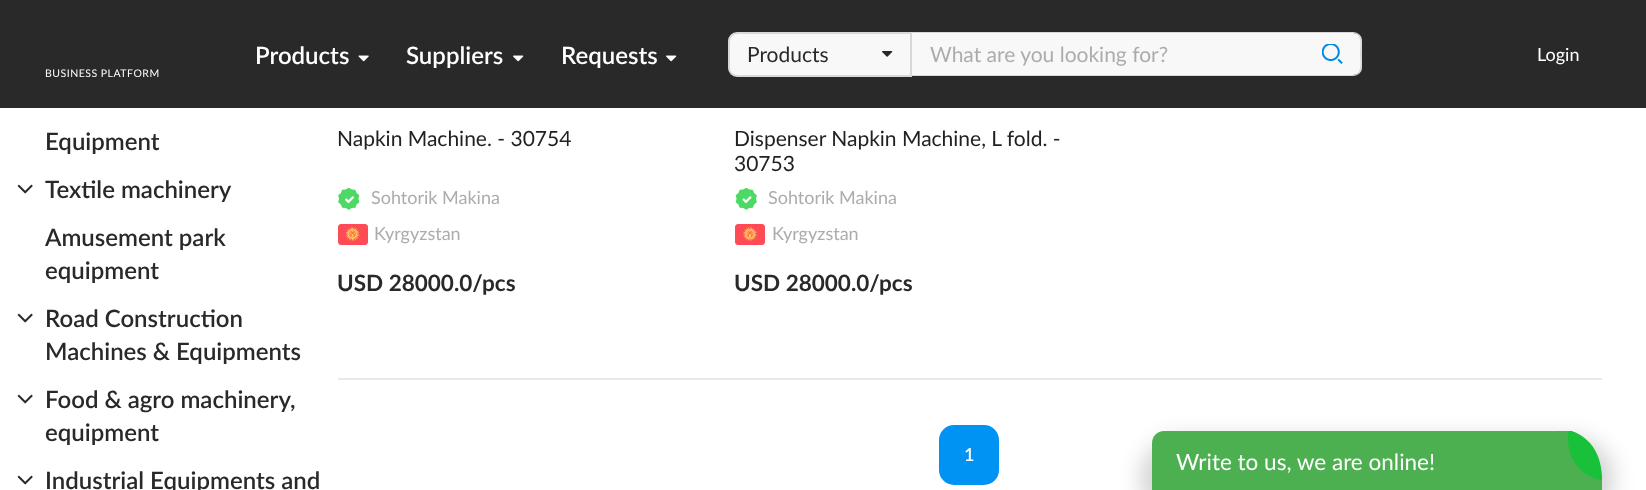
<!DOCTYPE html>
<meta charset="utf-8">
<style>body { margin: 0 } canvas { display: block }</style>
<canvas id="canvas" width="1646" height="490"></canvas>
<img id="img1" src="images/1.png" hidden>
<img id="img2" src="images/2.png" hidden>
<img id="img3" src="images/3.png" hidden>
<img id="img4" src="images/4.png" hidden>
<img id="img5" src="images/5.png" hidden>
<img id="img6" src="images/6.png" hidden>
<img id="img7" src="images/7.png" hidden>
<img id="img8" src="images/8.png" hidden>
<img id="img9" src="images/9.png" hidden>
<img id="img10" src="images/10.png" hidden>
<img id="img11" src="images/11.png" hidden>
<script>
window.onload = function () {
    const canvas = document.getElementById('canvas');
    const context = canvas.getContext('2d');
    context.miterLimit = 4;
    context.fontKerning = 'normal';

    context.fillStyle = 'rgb(255, 255, 255)';
    context.fillRect(0, 0, 1646, 490);
    context.fillStyle = 'rgb(41, 41, 41)';
    context.fillRect(0, 0, 1646, 108);
    context.drawImage(document.getElementById('img1'), 358, 55, 11, 7);
    context.drawImage(document.getElementById('img2'), 513, 55, 11, 7);
    context.drawImage(document.getElementById('img2'), 666, 55, 11, 7);
    context.fillStyle = 'rgb(248, 248, 248)';
    context.beginPath();
    context.roundRect(729, 33, 182, 43, [8, 0, 0, 8]);
    context.fill();
    context.strokeStyle = 'rgb(216, 216, 216)';
    context.lineWidth = 2;
    context.stroke();
    context.drawImage(document.getElementById('img3'), 882, 51, 11, 6);
    context.beginPath();
    context.roundRect(912, 33, 449, 42, [0, 8, 8, 0]);
    context.fill();
    context.fillStyle = 'rgb(216, 216, 216)';
    context.beginPath();
    context.moveTo(912, 32);
    context.lineTo(1353, 32);
    context.bezierCurveTo(1358, 32, 1362, 36, 1362, 40);
    context.lineTo(1362, 68);
    context.bezierCurveTo(1362, 72, 1358, 76, 1353, 76);
    context.lineTo(912, 76);
    context.closePath();
    context.moveTo(912, 33);
    context.lineTo(1353, 33);
    context.bezierCurveTo(1363, 33, 1360, 48, 1360, 54);
    context.bezierCurveTo(1360, 60, 1363, 75, 1353, 75);
    context.lineTo(912, 75);
    context.closePath();
    context.fill('evenodd');
    context.drawImage(document.getElementById('img4'), 1322, 44, 21, 20);
    context.drawImage(document.getElementById('img5'), 17, 184, 16, 10);
    context.drawImage(document.getElementById('img5'), 17, 313, 16, 10);
    context.drawImage(document.getElementById('img5'), 17, 394, 16, 10);
    context.drawImage(document.getElementById('img5'), 17, 475, 16, 10);
    context.fillStyle = 'rgb(234, 234, 234)';
    context.fillRect(338, 378, 1264, 2);
    context.drawImage(document.getElementById('img6'), 338, 188, 22, 22);
    context.drawImage(document.getElementById('img7'), 345, 196, 9, 8);
    context.drawImage(document.getElementById('img8'), 338, 224, 30, 21);
    context.drawImage(document.getElementById('img9'), 735, 188, 22, 22);
    context.drawImage(document.getElementById('img10'), 742, 196, 10, 8);
    context.drawImage(document.getElementById('img11'), 735, 224, 30, 21);
    context.fillStyle = 'rgb(0, 147, 243)';
    context.beginPath();
    context.roundRect(939, 425, 60, 60, 15);
    context.fill();
    context.fillStyle = 'rgba(0, 0, 0, 0.17)';
    context.filter = 'blur(10.5px)';
    context.beginPath();
    context.roundRect(1140, 437, 474, 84, 63);
    context.fill();
    context.filter = 'none';
    context.fillStyle = 'rgb(76, 175, 80)';
    context.beginPath();
    context.moveTo(1164, 431);
    context.lineTo(1551, 431);
    context.bezierCurveTo(1579, 431, 1602, 454, 1602, 482);
    context.lineTo(1602, 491);
    context.lineTo(1152, 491);
    context.lineTo(1152, 443);
    context.bezierCurveTo(1152, 436.5, 1157.5, 431, 1164, 431);
    context.closePath();
    context.fill();
    context.save();
    context.beginPath();
    context.rect(1554, 431, 48, 51);
    context.clip();
    context.beginPath();
    context.moveTo(1554, 430);
    context.lineTo(1568, 430);
    context.lineTo(1602, 480);
    context.lineTo(1602, 490);
    context.lineTo(1554, 490);
    context.closePath();
    context.fill('evenodd');
    context.fillStyle = 'rgb(24, 193, 57)';
    context.beginPath();
    context.moveTo(1568, 430);
    context.bezierCurveTo(1573, 431, 1602, 439, 1602, 480);
    context.bezierCurveTo(1582, 477, 1568, 459, 1568, 439);
    context.closePath();
    context.fill('evenodd');
    context.restore();
    context.font = '600 24px Lato';
    context.fillStyle = 'rgb(255, 255, 255)';
    context.fillText('Products', 255, 64);
    context.fillText('Suppliers', 406, 64);
    context.fillText('Requests', 561, 64);
    context.font = '21px Lato';
    context.fillStyle = 'rgb(41, 41, 41)';
    context.fillText('Products', 747, 62);
    context.fillStyle = 'rgb(172, 172, 172)';
    context.fillText('What are you looking for?', 930, 62);
    context.letterSpacing = '0.5px';
    context.font = '10.5px Lato';
    context.fillStyle = 'rgb(255, 255, 255)';
    context.fillText('BUSINESS PLATFORM', 45, 77);
    context.letterSpacing = '0px';
    context.font = '18px Lato';
    context.fillText('Login', 1537, 61);
    context.font = '600 24px Lato';
    context.fillStyle = 'rgb(41, 41, 41)';
    context.fillText('Equipment', 45, 150);
    context.fillText('Textile machinery', 45, 198);
    context.fillText('Amusement park', 45, 246);
    context.fillText('equipment', 45, 279);
    context.fillText('Road Construction', 45, 327);
    context.fillText('Machines & Equipments', 45, 360);
    context.fillText('Food & agro machinery,', 45, 408);
    context.fillText('equipment', 45, 441);
    context.fillText('Industrial Equipments and', 45, 489);
    context.font = '21px Lato';
    context.fillStyle = 'rgb(33, 33, 33)';
    context.fillText('Napkin Machine. - 30754', 337, 146);
    context.font = '18px Lato';
    context.fillStyle = 'rgb(172, 172, 172)';
    context.fillText('Sohtorik Makina', 371, 204);
    context.fillText('Kyrgyzstan', 374, 240);
    context.font = 'bold 22.5px Lato';
    context.fillStyle = 'rgb(41, 41, 41)';
    context.fillText('USD 28000.0/pcs', 337, 291);
    context.font = '21px Lato';
    context.fillStyle = 'rgb(33, 33, 33)';
    context.fillText('Dispenser Napkin Machine, L fold. -', 734, 146);
    context.fillText('30753', 734, 171);
    context.font = '18px Lato';
    context.fillStyle = 'rgb(172, 172, 172)';
    context.fillText('Sohtorik Makina', 768, 204);
    context.fillText('Kyrgyzstan', 772, 240);
    context.font = 'bold 22.5px Lato';
    context.fillStyle = 'rgb(41, 41, 41)';
    context.fillText('USD 28000.0/pcs', 734, 291);
    context.font = '600 18px Lato';
    context.fillStyle = 'rgb(255, 255, 255)';
    context.fillText('1', 964, 461);
    context.font = '22.5px Lato';
    context.fillText('Write to us, we are online!', 1176, 470);
};
</script>
